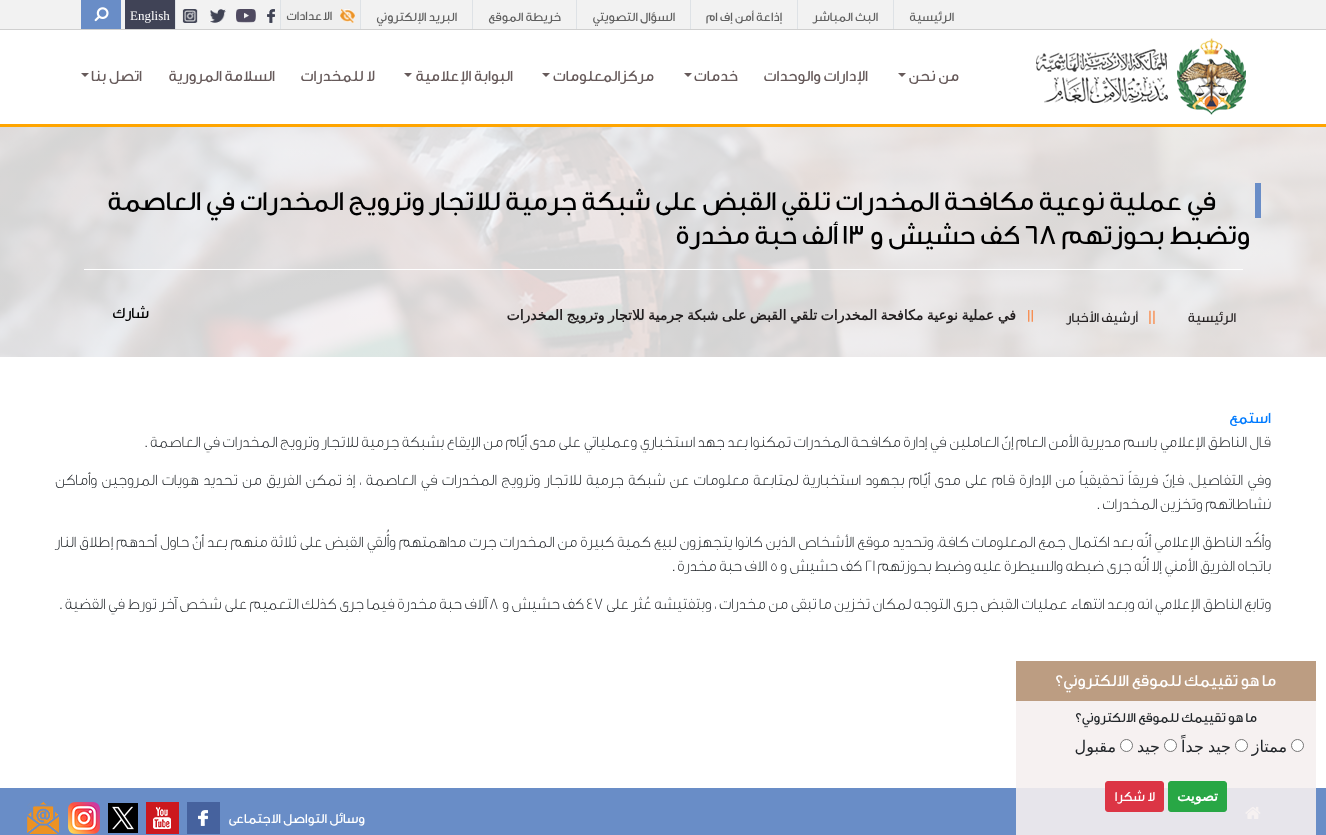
<!DOCTYPE html>
<meta charset="utf-8">
<style>body { margin: 0 } canvas { display: block }</style>
<canvas id="canvas" width="1326" height="835"></canvas>
<img id="img1" src="images/1.png" hidden>
<img id="img2" src="images/2.png" hidden>
<img id="img3" src="images/3.png" hidden>
<img id="img4" src="images/4.png" hidden>
<img id="img5" src="images/5.png" hidden>
<img id="img6" src="images/6.png" hidden>
<img id="img7" src="images/7.png" hidden>
<img id="img8" src="images/8.png" hidden>
<img id="img9" src="images/9.png" hidden>
<img id="img10" src="images/10.png" hidden>
<img id="img11" src="images/11.png" hidden>
<img id="img12" src="images/12.png" hidden>
<img id="img13" src="images/13.png" hidden>
<img id="img14" src="images/14.png" hidden>
<script>
window.onload = function () {
    const canvas = document.getElementById('canvas');
    const context = canvas.getContext('2d');
    context.miterLimit = 4;
    context.fontKerning = 'normal';

    context.fillStyle = 'rgb(255, 255, 255)';
    context.fillRect(0, 0, 1326, 835);
    context.fillStyle = 'rgb(246, 241, 241)';
    context.fillRect(1016, 701, 300, 87);
    context.fillStyle = 'rgb(242, 242, 242)';
    context.fillRect(0, 0, 1326, 29);
    context.fillStyle = 'rgb(208, 208, 208)';
    context.fillRect(0, 29, 1326, 1);
    context.fillStyle = 'rgb(222, 226, 230)';
    context.fillRect(893, 0, 1, 29);
    context.fillRect(797, 0, 1, 29);
    context.fillRect(690, 0, 1, 29);
    context.fillRect(576, 0, 1, 29);
    context.fillRect(472, 0, 1, 29);
    context.fillRect(360, 0, 1, 29);
    context.fillRect(280, 0, 1, 29);
    context.fillStyle = 'rgb(239, 239, 239)';
    context.fillRect(281, 0, 79, 29);
    context.drawImage(document.getElementById('img1'), 340, 9, 15, 14);
    context.fillStyle = 'rgb(222, 226, 230)';
    context.fillRect(175, 0, 1, 29);
    context.drawImage(document.getElementById('img2'), 267, 9, 8, 14);
    context.drawImage(document.getElementById('img3'), 236, 9, 20, 14);
    context.drawImage(document.getElementById('img4'), 209, 9, 17, 14);
    context.drawImage(document.getElementById('img5'), 182, 9, 16, 14);
    context.fillStyle = 'rgb(64, 67, 86)';
    context.fillRect(125, 0, 50, 29);
    context.fillStyle = 'rgb(105, 141, 199)';
    context.fillRect(81, 0, 40, 29);
    context.drawImage(document.getElementById('img6'), 94, 7, 15, 15);
    context.drawImage(document.getElementById('img7'), 1036, 38, 210, 77);
    context.fillStyle = 'rgb(102, 90, 90)';
    context.beginPath();
    context.moveTo(898, 73);
    context.lineTo(906, 73);
    context.lineTo(902, 77);
    context.closePath();
    context.fill();
    context.beginPath();
    context.moveTo(684, 73);
    context.lineTo(692, 73);
    context.lineTo(688, 77);
    context.closePath();
    context.fill();
    context.beginPath();
    context.moveTo(542, 73);
    context.lineTo(550, 73);
    context.lineTo(546, 77);
    context.closePath();
    context.fill();
    context.beginPath();
    context.moveTo(404, 73);
    context.lineTo(412, 73);
    context.lineTo(408, 77);
    context.closePath();
    context.fill();
    context.beginPath();
    context.moveTo(81, 73);
    context.lineTo(89, 73);
    context.lineTo(85, 77);
    context.closePath();
    context.fill();
    context.drawImage(document.getElementById('img8'), 0, 127, 1326, 230);
    context.fillStyle = 'rgb(255, 165, 0)';
    context.fillRect(0, 124, 1326, 3);
    context.fillStyle = 'rgb(105, 141, 199)';
    context.fillRect(1255, 183, 6, 35);
    context.fillStyle = 'rgb(255, 255, 255)';
    context.fillRect(84, 269, 1159, 1);
    context.fillStyle = 'rgb(188, 157, 130)';
    context.fillRect(1016, 661, 300, 40);
    context.fillStyle = 'rgb(255, 255, 255)';
    context.beginPath();
    context.arc(1297.5, 745.5, 6, 0, 2 * Math.PI);
    context.fill();
    context.strokeStyle = 'rgb(118, 118, 118)';
    context.stroke();
    context.beginPath();
    context.arc(1241.5, 745.5, 6, 0, 2 * Math.PI);
    context.fill();
    context.stroke();
    context.beginPath();
    context.arc(1170.5, 745.5, 6, 0, 2 * Math.PI);
    context.fill();
    context.stroke();
    context.beginPath();
    context.arc(1126.5, 745.5, 6, 0, 2 * Math.PI);
    context.fill();
    context.stroke();
    context.fillStyle = 'rgb(105, 141, 199)';
    context.fillRect(0, 788, 1326, 47);
    context.fillStyle = 'rgb(231, 229, 235)';
    context.fillRect(1016, 788, 300, 47);
    context.fillStyle = 'rgb(40, 167, 69)';
    context.beginPath();
    context.roundRect(1168.5, 781.5, 58, 30, 2.5);
    context.fill();
    context.strokeStyle = 'rgb(40, 167, 69)';
    context.stroke();
    context.fillStyle = 'rgb(220, 53, 69)';
    context.beginPath();
    context.roundRect(1105.5, 781.5, 58, 30, 2.5);
    context.fill();
    context.strokeStyle = 'rgb(220, 53, 69)';
    context.stroke();
    context.drawImage(document.getElementById('img9'), 1245, 806, 16, 13);
    context.drawImage(document.getElementById('img10'), 187, 802, 33, 32);
    context.drawImage(document.getElementById('img11'), 146, 802, 33, 32);
    context.drawImage(document.getElementById('img12'), 108, 803, 30, 30);
    context.drawImage(document.getElementById('img13'), 68, 802, 32, 32);
    context.drawImage(document.getElementById('img14'), 27, 802, 32, 32);
    context.direction = 'rtl';
    context.font = '500 13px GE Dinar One';
    context.fillStyle = 'rgb(95, 95, 95)';
    context.fillText('الرئيسية', 954, 21);
    context.fillText('البث المباشر', 878, 21);
    context.fillText('إذاعة أمن إف ام', 782, 21);
    context.fillText('السؤال التصويتي', 675, 21);
    context.fillText('خريطة الموقع', 561, 21);
    context.fillText('البريد الإلكتروني', 457, 21);
    context.fillText('الاعدادات', 332, 20);
    context.direction = 'ltr';
    context.font = '13px Liberation Serif';
    context.fillStyle = 'rgb(255, 255, 255)';
    context.fillText('English', 130, 20);
    context.direction = 'rtl';
    context.font = '500 16px GE Dinar One';
    context.fillStyle = 'rgb(102, 90, 90)';
    context.fillText('من نحن', 959, 81);
    context.fillText('الإدارات والوحدات', 868, 81);
    context.fillText('خدمات', 738, 81);
    context.fillText('مركزالمعلومات', 654, 81);
    context.fillText('البوابة الإعلامية', 513, 81);
    context.fillText('لا للمخدرات', 375, 81);
    context.fillText('السلامة المرورية', 275, 81);
    context.fillText('اتصل بنا', 142, 81);
    context.font = '500 28px GE Dinar One';
    context.fillStyle = 'rgb(0, 0, 0)';
    context.fillText('في عملية نوعية مكافحة المخدرات تلقي القبض على شبكة جرمية للاتجار وترويج المخدرات في العاصمة', 1216, 210);
    context.fillText('وتضبط بحوزتهم', 1250, 244);
    context.direction = 'ltr';
    context.fillText('68', 1024, 244);
    context.direction = 'rtl';
    context.fillText('كف حشيش و', 1020, 244);
    context.direction = 'ltr';
    context.fillText('13', 842, 244);
    context.direction = 'rtl';
    context.fillText('ألف حبة مخدرة', 838, 244);
    context.font = '500 14px GE Dinar One';
    context.fillStyle = 'rgb(35, 31, 32)';
    context.fillText('الرئيسية', 1236, 322);
    context.direction = 'ltr';
    context.font = '16px Roboto';
    context.fillStyle = 'rgb(250, 127, 57)';
    context.fillText('||', 1148, 322);
    context.direction = 'rtl';
    context.font = '500 14px GE Dinar One';
    context.fillStyle = 'rgb(35, 31, 32)';
    context.fillText('أرشيف الأخبار', 1138, 322);
    context.direction = 'ltr';
    context.font = '600 14px Roboto';
    context.fillStyle = 'rgb(250, 127, 57)';
    context.fillText('||', 1027, 320);
    context.wordSpacing = '-1px';
    context.direction = 'rtl';
    context.font = 'bold 14px DejaVu Sans';
    context.fillStyle = 'rgb(35, 31, 32)';
    context.fillText('في عملية نوعية مكافحة المخدرات تلقي القبض على شبكة جرمية للاتجار وترويج المخدرات', 1016, 320);
    context.wordSpacing = '0px';
    context.font = '500 16px GE Dinar One';
    context.fillStyle = 'rgb(0, 0, 0)';
    context.fillText('شارك', 149, 318);
    context.fillStyle = 'rgb(0, 123, 255)';
    context.fillText('استمع', 1271, 423);
    context.font = '300 16px GE Dinar One';
    context.fillStyle = 'rgb(33, 37, 41)';
    context.fillText('قال الناطق الإعلامي باسم مديرية الأمن العام إنّ العاملين في إدارة مكافحة المخدرات تمكنوا بعد جهد استخباري وعملياتي على مدى أيّام من الإيقاع بشبكة جرمية للاتجار وترويج المخدرات في العاصمة .', 1271, 447);
    context.wordSpacing = '1.75px';
    context.fillText('وفي التفاصيل، فإنّ فريقاً تحقيقياً من الإدارة قام على مدى أيّام بجهود استخبارية لمتابعة معلومات عن شبكة جرمية للاتجار وترويج المخدرات في العاصمة ، إذ تمكن الفريق من تحديد هويات المروجين وأماكن', 1271, 485);
    context.wordSpacing = '0px';
    context.fillText('نشاطاتهم وتخزين المخدرات .', 1271, 509);
    context.wordSpacing = '0.4px';
    context.fillText('وأكّد الناطق الإعلامي أنّه بعد اكتمال جمع المعلومات كافة، وتحديد موقع الأشخاص الذين كانوا يتجهزون لبيع كمية كبيرة من المخدرات جرت مداهمتهم وأُلقي القبض على ثلاثة منهم بعد أنْ حاول أحدهم إطلاق النار', 1271, 547);
    context.wordSpacing = '0px';
    context.fillText('باتجاه الفريق الأمني إلا أنّه جرى ضبطه والسيطرة عليه وضبط بحوزتهم', 1271, 571);
    context.direction = 'ltr';
    context.fillText('21', 865, 571);
    context.direction = 'rtl';
    context.fillText('كف حشيش و', 862, 571);
    context.direction = 'ltr';
    context.fillText('5', 770, 571);
    context.direction = 'rtl';
    context.fillText('الاف حبة مخدرة .', 767, 571);
    context.fillText('وتابع الناطق الإعلامي انه وبعد انتهاء عمليات القبض جرى التوجه لمكان تخزين ما تبقى من مخدرات ، وبتفتيشه عُثر على', 1271, 609);
    context.direction = 'ltr';
    context.fillText('47', 586, 609);
    context.direction = 'rtl';
    context.fillText('كف حشيش و', 584, 609);
    context.direction = 'ltr';
    context.fillText('8', 489, 609);
    context.direction = 'rtl';
    context.fillText('آلاف حبة مخدرة فيما جرى كذلك التعميم على شخص آخر تورط في القضية .', 487, 609);
    context.font = '500 17px GE Dinar One';
    context.fillStyle = 'rgb(255, 255, 255)';
    context.fillText('ما هو تقييمك للموقع الالكتروني؟', 1276, 686);
    context.font = '500 14px GE Dinar One';
    context.fillStyle = 'rgb(33, 37, 41)';
    context.fillText('ما هو تقييمك للموقع الالكتروني؟', 1257, 722);
    context.font = '16px DejaVu Sans';
    context.fillText('ممتاز', 1287, 752);
    context.wordSpacing = '-1px';
    context.fillText('جيد جداً', 1231, 752);
    context.wordSpacing = '0px';
    context.fillText('جيد', 1160, 752);
    context.fillText('مقبول', 1116, 752);
    context.font = 'bold 14px DejaVu Sans';
    context.fillStyle = 'rgb(255, 255, 255)';
    context.fillText('تصويت', 1218, 801);
    context.font = '500 14px GE Dinar One';
    context.fillText('لا شكرا', 1155, 801);
    context.fillText('وسائل التواصل الاجتماعى', 365, 823);
};
</script>
